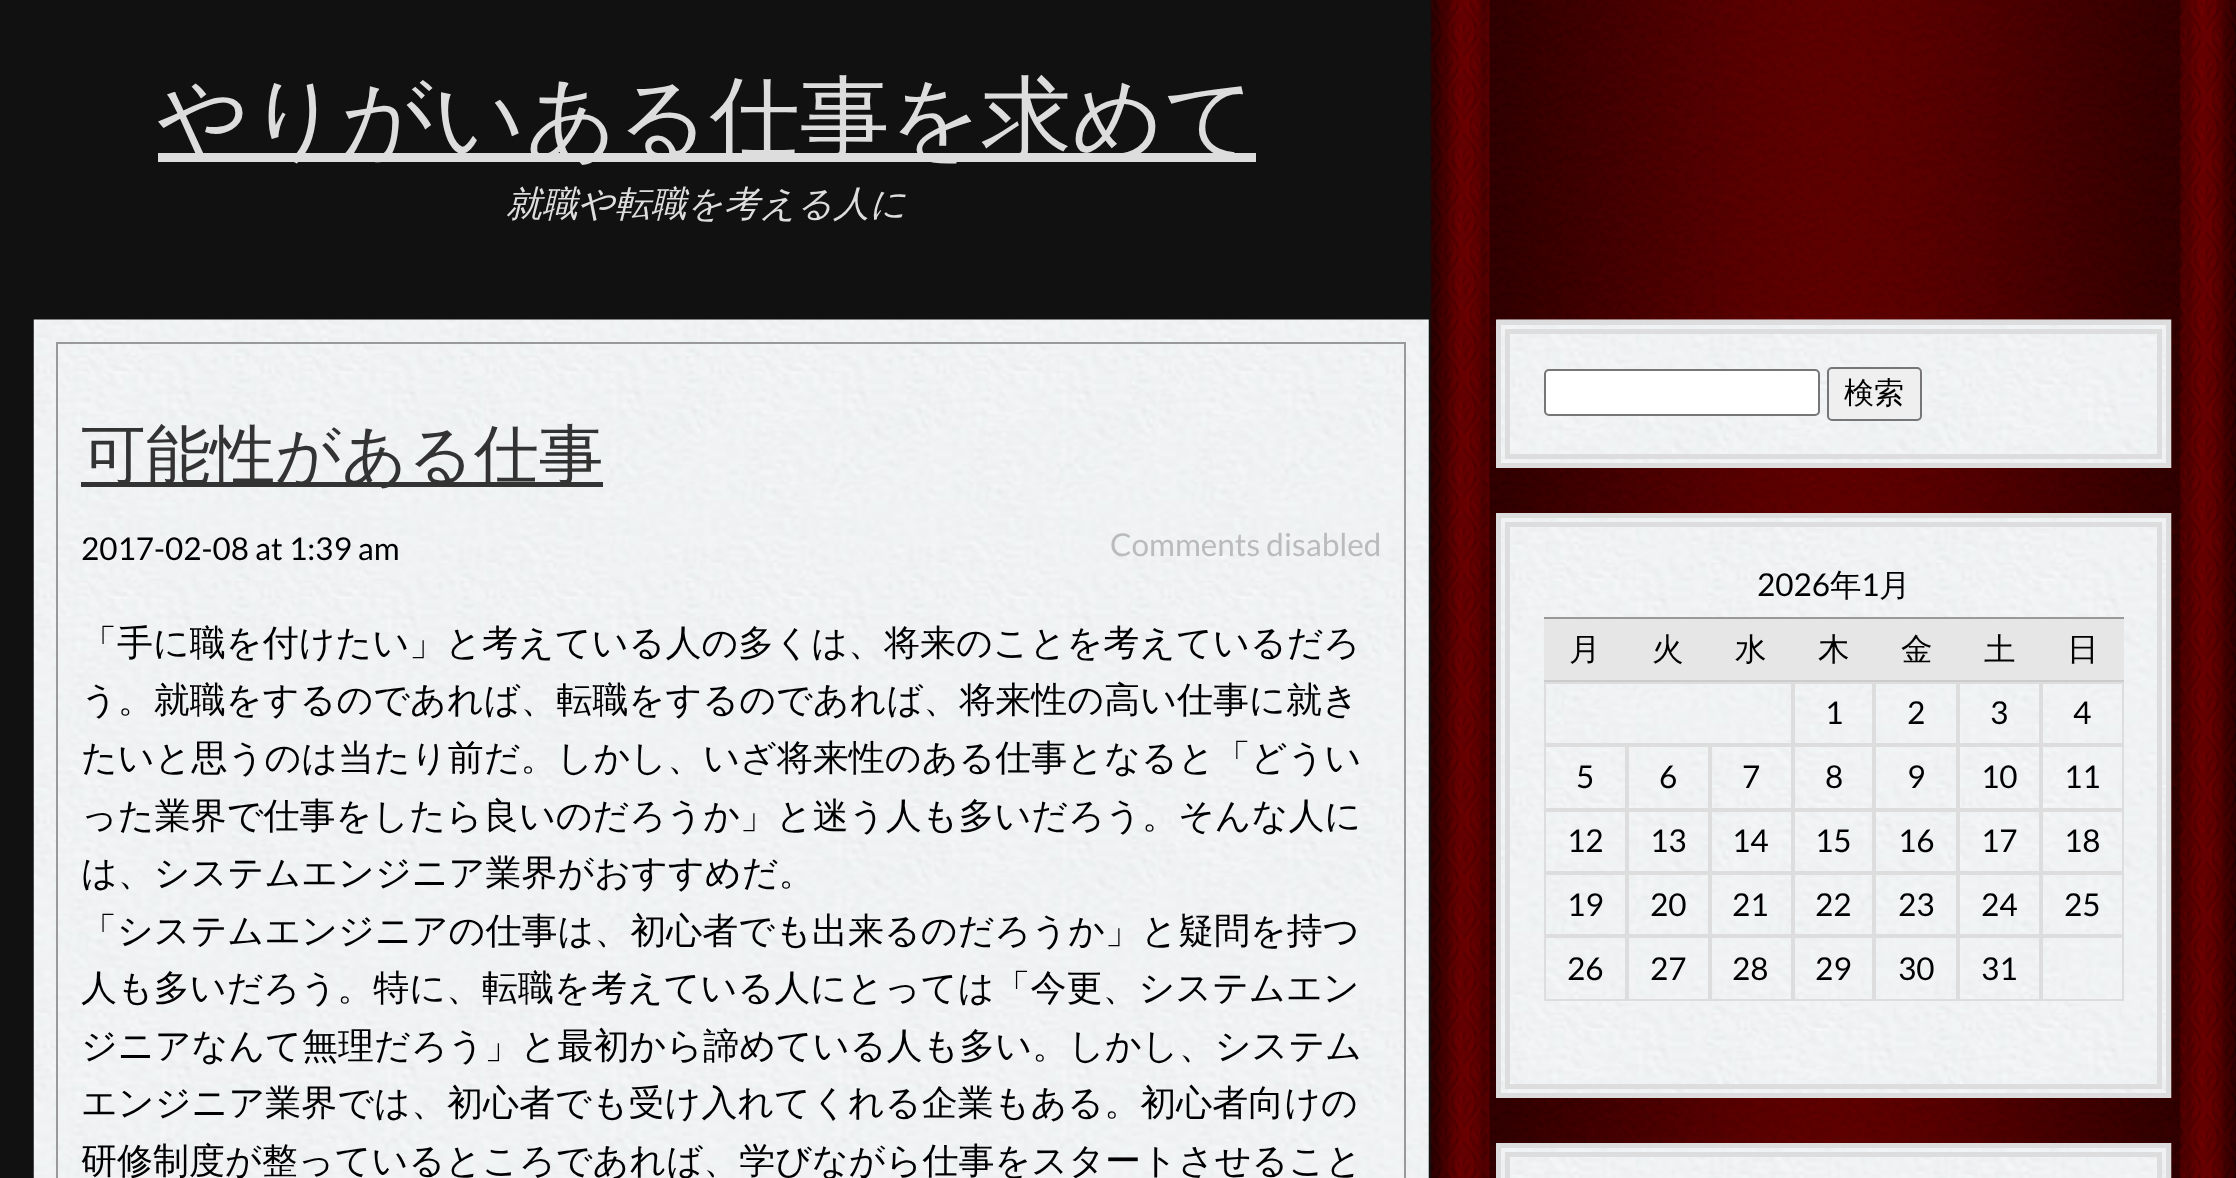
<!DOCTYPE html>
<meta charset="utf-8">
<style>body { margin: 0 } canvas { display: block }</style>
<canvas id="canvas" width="2236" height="1178"></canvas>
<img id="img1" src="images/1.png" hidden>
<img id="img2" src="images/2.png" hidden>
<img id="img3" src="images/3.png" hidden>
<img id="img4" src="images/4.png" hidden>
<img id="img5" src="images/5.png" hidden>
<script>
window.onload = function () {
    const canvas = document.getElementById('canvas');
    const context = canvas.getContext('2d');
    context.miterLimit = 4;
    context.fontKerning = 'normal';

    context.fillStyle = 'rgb(17, 17, 17)';
    context.fillRect(0, 0, 2236, 1178);
    context.drawImage(document.getElementById('img1'), 1430, 0, 806, 1178);
    context.fillStyle = 'rgb(221, 221, 221)';
    context.fillRect(158, 153, 1098, 9);
    context.drawImage(document.getElementById('img2'), 33, 319, 1396, 859);
    context.strokeStyle = 'rgb(153, 153, 153)';
    context.lineWidth = 2;
    context.strokeRect(57, 343, 1348, 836);
    context.fillStyle = 'rgb(51, 51, 51)';
    context.fillRect(81, 482, 522, 5);
    context.drawImage(document.getElementById('img3'), 1496, 319, 676, 149);
    context.strokeStyle = 'rgb(221, 221, 221)';
    context.lineWidth = 5;
    context.strokeRect(1498.5, 322.5, 670, 143);
    context.strokeRect(1507.5, 331.5, 652, 125);
    context.fillStyle = 'rgb(255, 255, 255)';
    context.beginPath();
    context.roundRect(1545, 370, 274, 45, 4);
    context.fill();
    context.strokeStyle = 'rgb(118, 118, 118)';
    context.lineWidth = 2;
    context.stroke();
    context.fillStyle = 'rgb(239, 239, 239)';
    context.beginPath();
    context.roundRect(1828, 368, 93, 52, 4);
    context.fill();
    context.stroke();
    context.drawImage(document.getElementById('img4'), 1501, 513, 671, 585);
    context.strokeStyle = 'rgb(221, 221, 221)';
    context.lineWidth = 5;
    context.strokeRect(1498.5, 515.5, 670, 580);
    context.strokeRect(1507.5, 524.5, 652, 562);
    context.fillStyle = 'rgb(153, 153, 153)';
    context.fillRect(1544, 617, 580, 2);
    context.fillStyle = 'rgb(230, 230, 230)';
    context.fillRect(1544, 619, 580, 61);
    context.fillStyle = 'rgb(204, 204, 204)';
    context.fillRect(1544, 680, 580, 2);
    context.lineWidth = 2;
    context.strokeRect(1545, 683, 247, 61);
    context.strokeRect(1794, 683, 79, 61);
    context.strokeRect(1875, 683, 82, 61);
    context.strokeRect(1959, 683, 81, 61);
    context.strokeRect(2042, 683, 81, 61);
    context.strokeRect(1545, 746, 81, 63);
    context.strokeRect(1628, 746, 81, 63);
    context.strokeRect(1711, 746, 81, 63);
    context.strokeRect(1794, 746, 79, 63);
    context.strokeRect(1875, 746, 82, 63);
    context.strokeRect(1959, 746, 81, 63);
    context.strokeRect(2042, 746, 81, 63);
    context.strokeRect(1545, 811, 81, 61);
    context.strokeRect(1628, 811, 81, 61);
    context.strokeRect(1711, 811, 81, 61);
    context.strokeRect(1794, 811, 79, 61);
    context.strokeRect(1875, 811, 82, 61);
    context.strokeRect(1959, 811, 81, 61);
    context.strokeRect(2042, 811, 81, 61);
    context.strokeRect(1545, 874, 81, 61);
    context.strokeRect(1628, 874, 81, 61);
    context.strokeRect(1711, 874, 81, 61);
    context.strokeRect(1794, 874, 79, 61);
    context.strokeRect(1875, 874, 82, 61);
    context.strokeRect(1959, 874, 81, 61);
    context.strokeRect(2042, 874, 81, 61);
    context.strokeRect(1545, 937, 81, 63);
    context.strokeRect(1628, 937, 81, 63);
    context.strokeRect(1711, 937, 81, 63);
    context.strokeRect(1794, 937, 79, 63);
    context.strokeRect(1875, 937, 82, 63);
    context.strokeRect(1959, 937, 81, 63);
    context.strokeRect(2042, 937, 81, 63);
    context.drawImage(document.getElementById('img5'), 1501, 1143, 671, 35);
    context.lineWidth = 5;
    context.strokeRect(1498.5, 1145.5, 670, 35);
    context.strokeRect(1507.5, 1154.5, 652, 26);
    context.font = '500 90px WenQuanYi Zen Hei';
    context.fillStyle = 'rgb(221, 221, 221)';
    context.fillText('やりがいある仕事を求めて', 157, 149);
    context.font = 'italic 500 36px WenQuanYi Zen Hei';
    context.fillText('就職や転職を考える人に', 506, 216);
    context.font = '500 64.75px WenQuanYi Zen Hei';
    context.fillStyle = 'rgb(51, 51, 51)';
    context.fillText('可能性がある仕事', 81, 477);
    context.font = '31.5px Lato';
    context.fillStyle = 'rgb(0, 0, 0)';
    context.fillText('2017-02-08 at 1:39 am', 81, 560);
    context.fillStyle = 'rgb(187, 187, 187)';
    context.fillText('Comments disabled', 1110, 556);
    context.font = '500 36px WenQuanYi Zen Hei';
    context.fillStyle = 'rgb(0, 0, 0)';
    context.fillText('「手に職を付けたい」と考えている人の多くは、将来のことを考えているだろ', 81, 655);
    context.fillText('う。就職をするのであれば、転職をするのであれば、将来性の高い仕事に就き', 81, 712);
    context.fillText('たいと思うのは当たり前だ。しかし、いざ将来性のある仕事となると「どうい', 81, 770);
    context.fillText('った業界で仕事をしたら良いのだろうか」と迷う人も多いだろう。そんな人に', 81, 828);
    context.fillText('は、システムエンジニア業界がおすすめだ。', 81, 885);
    context.fillText('「システムエンジニアの仕事は、初心者でも出来るのだろうか」と疑問を持つ', 81, 943);
    context.fillText('人も多いだろう。特に、転職を考えている人にとっては「今更、システムエン', 81, 1000);
    context.fillText('ジニアなんて無理だろう」と最初から諦めている人も多い。しかし、システム', 81, 1058);
    context.fillText('エンジニア業界では、初心者でも受け入れてくれる企業もある。初心者向けの', 81, 1115);
    context.fillText('研修制度が整っているところであれば、学びながら仕事をスタートさせること', 81, 1173);
    context.font = '500 30px WenQuanYi Zen Hei';
    context.fillText('検索', 1844, 403);
    context.font = '31.5px Lato';
    context.fillText('2026', 1757, 596);
    context.font = '500 31.5px WenQuanYi Zen Hei';
    context.fillText('年', 1830, 596);
    context.font = '31.5px Lato';
    context.fillText('1', 1861, 596);
    context.font = '500 31.5px WenQuanYi Zen Hei';
    context.fillText('月', 1879, 596);
    context.fillText('月', 1569, 660);
    context.fillText('火', 1652, 660);
    context.fillText('水', 1735, 660);
    context.fillText('木', 1818, 660);
    context.fillText('金', 1901, 660);
    context.fillText('土', 1984, 660);
    context.fillText('日', 2067, 660);
    context.font = '31.5px Lato';
    context.fillText('1', 1825, 724);
    context.fillText('2', 1907, 724);
    context.fillText('3', 1990, 724);
    context.fillText('4', 2073, 724);
    context.fillText('5', 1576, 788);
    context.fillText('6', 1659, 788);
    context.fillText('7', 1742, 788);
    context.fillText('8', 1825, 788);
    context.fillText('9', 1907, 788);
    context.fillText('10', 1981, 788);
    context.fillText('11', 2064, 788);
    context.fillText('12', 1567, 852);
    context.fillText('13', 1650, 852);
    context.fillText('14', 1732, 852);
    context.fillText('15', 1815, 852);
    context.fillText('16', 1898, 852);
    context.fillText('17', 1981, 852);
    context.fillText('18', 2064, 852);
    context.fillText('19', 1567, 916);
    context.fillText('20', 1650, 916);
    context.fillText('21', 1732, 916);
    context.fillText('22', 1815, 916);
    context.fillText('23', 1898, 916);
    context.fillText('24', 1981, 916);
    context.fillText('25', 2064, 916);
    context.fillText('26', 1567, 980);
    context.fillText('27', 1650, 980);
    context.fillText('28', 1732, 980);
    context.fillText('29', 1815, 980);
    context.fillText('30', 1898, 980);
    context.fillText('31', 1981, 980);
};
</script>
